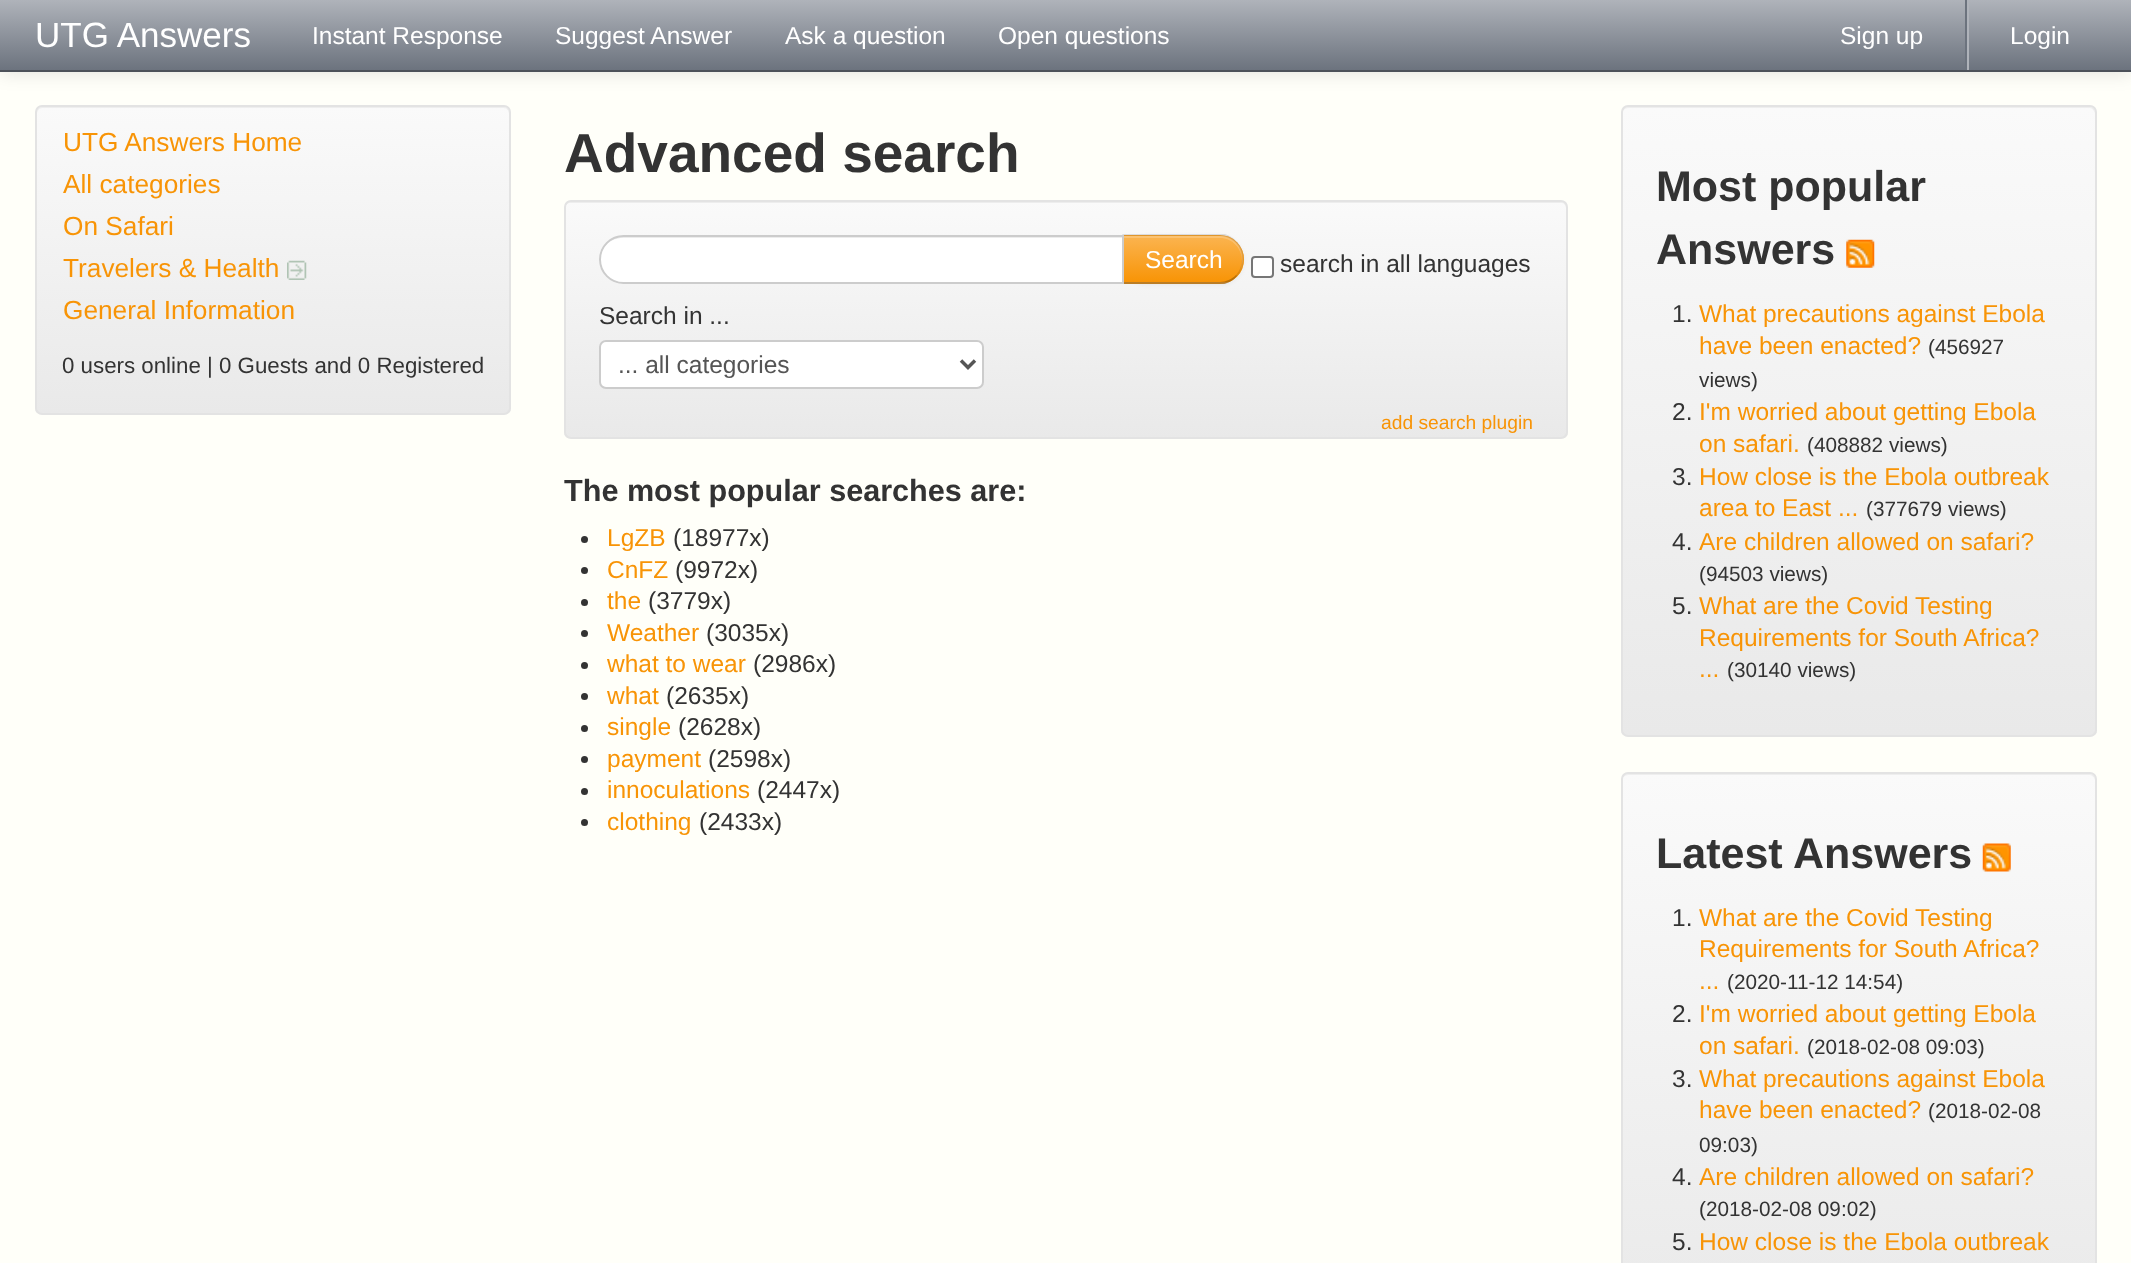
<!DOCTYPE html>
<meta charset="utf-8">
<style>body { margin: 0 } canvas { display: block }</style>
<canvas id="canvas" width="2131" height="1263"></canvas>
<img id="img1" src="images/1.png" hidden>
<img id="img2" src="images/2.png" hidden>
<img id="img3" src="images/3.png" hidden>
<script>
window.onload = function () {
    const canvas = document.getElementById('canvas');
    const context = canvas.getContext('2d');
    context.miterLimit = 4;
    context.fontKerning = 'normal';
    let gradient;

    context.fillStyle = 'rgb(255, 255, 249)';
    context.fillRect(0, 0, 2131, 1263);
    context.fillStyle = 'rgba(0, 0, 0, 0.1)';
    context.filter = 'blur(9px)';
    context.beginPath();
    context.rect(0, 2, 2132, 72);
    context.fill();
    context.filter = 'none';
    gradient = context.createLinearGradient(1066, 0, 1066, 70);
    gradient.addColorStop(0, 'rgb(175, 179, 186)');
    gradient.addColorStop(1, 'rgb(108, 115, 126)');
    context.fillStyle = gradient;
    context.fillRect(0, 0, 2131, 70);
    context.fillStyle = 'rgb(76, 81, 89)';
    context.fillRect(0, 70, 2131, 2);
    context.fillStyle = 'rgb(175, 179, 186)';
    context.fillRect(1967, 0, 2, 70);
    context.fillStyle = 'rgb(108, 115, 126)';
    context.fillRect(1965, 0, 2, 70);
    context.save();
    context.beginPath();
    context.roundRect(35, 105, 476, 310, 7);
    context.clip();
    gradient = context.createLinearGradient(273, 107, 273, 413);
    gradient.addColorStop(0, 'rgb(250, 250, 250)');
    gradient.addColorStop(1, 'rgb(233, 233, 233)');
    context.fillStyle = gradient;
    context.fillRect(35, 107, 476, 306);
    context.restore();
    context.fillStyle = 'rgb(238, 238, 238)';
    context.beginPath();
    context.moveTo(42, 108);
    context.lineTo(504, 108);
    context.bezierCurveTo(507, 108, 509, 111, 509, 114);
    context.lineTo(509, 112);
    context.bezierCurveTo(509, 109, 507, 107, 504, 107);
    context.lineTo(42, 107);
    context.bezierCurveTo(39, 107, 37, 109, 37, 112);
    context.lineTo(37, 114);
    context.bezierCurveTo(37, 111, 39, 108, 42, 108);
    context.closePath();
    context.fill();
    context.beginPath();
    context.roundRect(36, 106, 474, 308, 6);
    context.strokeStyle = 'rgb(227, 227, 227)';
    context.lineWidth = 2;
    context.stroke();
    context.drawImage(document.getElementById('img1'), 287, 260, 20, 20);
    context.save();
    context.beginPath();
    context.roundRect(564, 200, 1004, 239, 7);
    context.clip();
    gradient = context.createLinearGradient(1066, 201, 1066, 438);
    gradient.addColorStop(0, 'rgb(250, 250, 250)');
    gradient.addColorStop(1, 'rgb(233, 233, 233)');
    context.fillStyle = gradient;
    context.fillRect(564, 201, 1004, 237);
    context.restore();
    context.fillStyle = 'rgb(237, 237, 237)';
    context.beginPath();
    context.moveTo(570, 203);
    context.lineTo(1561, 203);
    context.bezierCurveTo(1564, 203, 1566, 205, 1566, 208);
    context.lineTo(1566, 206);
    context.bezierCurveTo(1566, 203, 1564, 201, 1561, 201);
    context.lineTo(570, 201);
    context.bezierCurveTo(567, 201, 565, 203, 565, 206);
    context.lineTo(565, 208);
    context.bezierCurveTo(565, 205, 568, 203, 570, 203);
    context.closePath();
    context.fill();
    context.beginPath();
    context.roundRect(565, 201, 1002, 237, 6);
    context.stroke();
    context.fillStyle = 'rgba(0, 0, 0, 0.05)';
    context.filter = 'blur(2px)';
    context.beginPath();
    context.roundRect(1122, 236, 122, 49, 24.5);
    context.fill();
    context.filter = 'none';
    context.fillStyle = 'rgb(250, 167, 50)';
    context.beginPath();
    context.roundRect(1122, 235, 122, 49, [0, 24.5, 24.5, 0]);
    context.fill();
    context.save();
    context.beginPath();
    context.roundRect(1122, 235, 122, 49, [0, 24.5, 24.5, 0]);
    context.clip();
    gradient = context.createLinearGradient(1183, 236, 1183, 282);
    gradient.addColorStop(0, 'rgb(251, 180, 80)');
    gradient.addColorStop(1, 'rgb(248, 148, 6)');
    context.fillStyle = gradient;
    context.fillRect(1124, 236, 120, 46);
    context.restore();
    context.fillStyle = 'rgba(255, 255, 255, 0.2)';
    context.beginPath();
    context.moveTo(1124, 238);
    context.lineTo(1220, 238);
    context.bezierCurveTo(1232, 238, 1242, 248, 1242, 261);
    context.bezierCurveTo(1242, 264, 1241, 268, 1240, 271);
    context.bezierCurveTo(1242, 267, 1243, 263, 1243, 259);
    context.bezierCurveTo(1243, 246, 1233, 236, 1220, 236);
    context.lineTo(1124, 236);
    context.closePath();
    context.fill();
    context.fillStyle = 'rgba(0, 0, 0, 0.1)';
    context.beginPath();
    context.moveTo(1124, 236);
    context.lineTo(1124, 237);
    context.lineTo(1122, 234);
    context.lineTo(1225, 234);
    context.bezierCurveTo(1230, 236, 1234, 238, 1237, 242);
    context.lineTo(1236, 243);
    context.bezierCurveTo(1232, 239, 1226, 236, 1220, 236);
    context.closePath();
    context.fill();
    context.beginPath();
    context.moveTo(1237, 241.5);
    context.bezierCurveTo(1246, 251, 1246, 267, 1237, 276.5);
    context.lineTo(1236, 275);
    context.bezierCurveTo(1244, 266.5, 1244, 251.5, 1236, 243);
    context.closePath();
    context.fill();
    context.fillStyle = 'rgba(0, 0, 0, 0.25)';
    context.beginPath();
    context.moveTo(1122, 284);
    context.lineTo(1124, 281);
    context.lineTo(1124, 282);
    context.lineTo(1220, 282);
    context.bezierCurveTo(1226, 282, 1232, 279, 1236, 275);
    context.lineTo(1237, 276);
    context.bezierCurveTo(1234, 280, 1230, 282, 1225, 284);
    context.closePath();
    context.fill();
    context.fillStyle = 'rgb(255, 255, 255)';
    context.beginPath();
    context.roundRect(599, 235, 525, 49, [24.5, 0, 0, 24.5]);
    context.fill();
    context.fillStyle = 'rgb(236, 236, 236)';
    context.beginPath();
    context.moveTo(623, 238);
    context.lineTo(1122, 238);
    context.lineTo(1122, 236);
    context.lineTo(623, 236);
    context.bezierCurveTo(610, 236, 599, 247, 600, 260);
    context.bezierCurveTo(601, 247, 610, 238, 623, 238);
    context.closePath();
    context.fill();
    context.beginPath();
    context.roundRect(600, 236, 523, 47, [23.5, 0, 0, 23.5]);
    context.strokeStyle = 'rgb(204, 204, 204)';
    context.stroke();
    context.fillStyle = 'rgb(255, 255, 255)';
    context.beginPath();
    context.roundRect(1252, 257, 21, 20, 3);
    context.fill();
    context.strokeStyle = 'rgb(118, 118, 118)';
    context.stroke();
    context.beginPath();
    context.roundRect(600, 341, 383, 47, 6);
    context.fill();
    context.strokeStyle = 'rgb(204, 204, 204)';
    context.stroke();
    context.beginPath();
    context.moveTo(961, 360.5);
    context.lineTo(968, 367.5);
    context.lineTo(975, 360.5);
    context.strokeStyle = 'rgb(85, 85, 85)';
    context.lineWidth = 3.5;
    context.stroke();
    context.fillStyle = 'rgb(51, 51, 51)';
    context.beginPath();
    context.arc(584.5, 539.5, 3.5, 0, 2 * Math.PI);
    context.fill();
    context.beginPath();
    context.arc(584.5, 570.5, 3.5, 0, 2 * Math.PI);
    context.fill();
    context.beginPath();
    context.arc(584.5, 602.5, 3.5, 0, 2 * Math.PI);
    context.fill();
    context.beginPath();
    context.arc(584.5, 633.5, 3.5, 0, 2 * Math.PI);
    context.fill();
    context.beginPath();
    context.arc(584.5, 665.5, 3.5, 0, 2 * Math.PI);
    context.fill();
    context.beginPath();
    context.arc(584.5, 696.5, 3.5, 0, 2 * Math.PI);
    context.fill();
    context.beginPath();
    context.arc(584.5, 728.5, 3.5, 0, 2 * Math.PI);
    context.fill();
    context.beginPath();
    context.arc(584.5, 759.5, 3.5, 0, 2 * Math.PI);
    context.fill();
    context.beginPath();
    context.arc(584.5, 791.5, 3.5, 0, 2 * Math.PI);
    context.fill();
    context.beginPath();
    context.arc(584.5, 822.5, 3.5, 0, 2 * Math.PI);
    context.fill();
    context.save();
    context.beginPath();
    context.roundRect(1621, 105, 476, 632, 7);
    context.clip();
    gradient = context.createLinearGradient(1859, 107, 1859, 735);
    gradient.addColorStop(0, 'rgb(250, 250, 250)');
    gradient.addColorStop(1, 'rgb(233, 233, 233)');
    context.fillStyle = gradient;
    context.fillRect(1621, 107, 476, 628);
    context.restore();
    context.fillStyle = 'rgb(238, 238, 238)';
    context.beginPath();
    context.moveTo(1628, 108);
    context.lineTo(2090, 108);
    context.bezierCurveTo(2092, 108, 2095, 111, 2095, 114);
    context.lineTo(2095, 112);
    context.bezierCurveTo(2095, 109, 2093, 107, 2090, 107);
    context.lineTo(1627, 107);
    context.bezierCurveTo(1624, 107, 1622, 109, 1622, 112);
    context.lineTo(1622, 114);
    context.bezierCurveTo(1622, 111, 1625, 108, 1628, 108);
    context.closePath();
    context.fill();
    context.beginPath();
    context.roundRect(1622, 106, 474, 630, 6);
    context.strokeStyle = 'rgb(227, 227, 227)';
    context.lineWidth = 2;
    context.stroke();
    context.drawImage(document.getElementById('img2'), 1846, 239, 29, 29);
    context.save();
    context.beginPath();
    context.roundRect(1621, 772, 476, 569, 7);
    context.clip();
    gradient = context.createLinearGradient(1859, 774, 1859, 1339);
    gradient.addColorStop(0, 'rgb(250, 250, 250)');
    gradient.addColorStop(1, 'rgb(233, 233, 233)');
    context.fillStyle = gradient;
    context.fillRect(1621, 774, 476, 489);
    context.restore();
    context.beginPath();
    context.moveTo(1628, 775);
    context.lineTo(2090, 775);
    context.bezierCurveTo(2092, 775, 2095, 778, 2095, 780);
    context.lineTo(2095, 779);
    context.bezierCurveTo(2095, 776, 2093, 774, 2090, 774);
    context.lineTo(1627, 774);
    context.bezierCurveTo(1624, 774, 1622, 776, 1622, 779);
    context.lineTo(1622, 780);
    context.bezierCurveTo(1622, 778, 1625, 775, 1628, 775);
    context.closePath();
    context.fill();
    context.beginPath();
    context.roundRect(1622, 773, 474, 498, 6);
    context.stroke();
    context.drawImage(document.getElementById('img3'), 1982, 843, 29, 29);
    context.font = '35px Liberation Sans';
    context.fillStyle = 'rgb(255, 255, 255)';
    context.fillText('UTG Answers', 35, 47);
    context.font = '24.5px Liberation Sans';
    context.fillText('Instant Response', 312, 44);
    context.fillText('Suggest Answer', 555, 44);
    context.fillText('Ask a question', 785, 44);
    context.fillText('Open questions', 998, 44);
    context.fillText('Sign up', 1840, 44);
    context.fillText('Login', 2010, 44);
    context.font = '26.25px Liberation Sans';
    context.fillStyle = 'rgb(248, 148, 6)';
    context.fillText('UTG Answers Home', 63, 151);
    context.fillText('All categories', 63, 193);
    context.fillText('On Safari', 63, 235);
    context.fillText('Travelers & Health', 63, 277);
    context.fillText('General Information', 63, 319);
    context.font = '22.3px Liberation Sans';
    context.fillStyle = 'rgb(51, 51, 51)';
    context.fillText('0 users online | 0 Guests and 0 Registered', 62, 373);
    context.font = 'bold 55px Liberation Sans';
    context.fillText('Advanced search', 564, 172);
    context.font = '24.5px Liberation Sans';
    context.fillStyle = 'rgb(255, 255, 255)';
    context.fillText('Search', 1145, 268);
    context.fillStyle = 'rgb(51, 51, 51)';
    context.fillText('search in all languages', 1280, 272);
    context.fillText('Search in ...', 599, 324);
    context.fillStyle = 'rgb(85, 85, 85)';
    context.fillText('... all categories', 618, 373);
    context.font = '19.25px Liberation Sans';
    context.fillStyle = 'rgb(248, 148, 6)';
    context.fillText('add search plugin', 1381, 429);
    context.font = 'bold 30.6px Liberation Sans';
    context.fillStyle = 'rgb(51, 51, 51)';
    context.fillText('The most popular searches are:', 564, 501);
    context.font = '24.5px Liberation Sans';
    context.fillStyle = 'rgb(248, 148, 6)';
    context.fillText('LgZB', 607, 546);
    context.fillStyle = 'rgb(51, 51, 51)';
    context.fillText('(18977x)', 673, 546);
    context.fillStyle = 'rgb(248, 148, 6)';
    context.fillText('CnFZ', 607, 578);
    context.fillStyle = 'rgb(51, 51, 51)';
    context.fillText('(9972x)', 675, 578);
    context.fillStyle = 'rgb(248, 148, 6)';
    context.fillText('the', 607, 609);
    context.fillStyle = 'rgb(51, 51, 51)';
    context.fillText('(3779x)', 648, 609);
    context.fillStyle = 'rgb(248, 148, 6)';
    context.fillText('Weather', 607, 641);
    context.fillStyle = 'rgb(51, 51, 51)';
    context.fillText('(3035x)', 706, 641);
    context.fillStyle = 'rgb(248, 148, 6)';
    context.fillText('what to wear', 607, 672);
    context.fillStyle = 'rgb(51, 51, 51)';
    context.fillText('(2986x)', 753, 672);
    context.fillStyle = 'rgb(248, 148, 6)';
    context.fillText('what', 607, 704);
    context.fillStyle = 'rgb(51, 51, 51)';
    context.fillText('(2635x)', 666, 704);
    context.fillStyle = 'rgb(248, 148, 6)';
    context.fillText('single', 607, 735);
    context.fillStyle = 'rgb(51, 51, 51)';
    context.fillText('(2628x)', 678, 735);
    context.fillStyle = 'rgb(248, 148, 6)';
    context.fillText('payment', 607, 767);
    context.fillStyle = 'rgb(51, 51, 51)';
    context.fillText('(2598x)', 708, 767);
    context.fillStyle = 'rgb(248, 148, 6)';
    context.fillText('innoculations', 607, 798);
    context.fillStyle = 'rgb(51, 51, 51)';
    context.fillText('(2447x)', 757, 798);
    context.fillStyle = 'rgb(248, 148, 6)';
    context.fillText('clothing', 607, 830);
    context.fillStyle = 'rgb(51, 51, 51)';
    context.fillText('(2433x)', 699, 830);
    context.font = 'bold 43px Liberation Sans';
    context.fillText('Most popular', 1656, 201);
    context.fillText('Answers', 1656, 264);
    context.font = '24.5px Liberation Sans';
    context.fillText('1.', 1672, 322);
    context.fillStyle = 'rgb(248, 148, 6)';
    context.fillText('What precautions against Ebola', 1699, 322);
    context.fillText('have been enacted?', 1699, 354);
    context.font = '20.75px Liberation Sans';
    context.fillStyle = 'rgb(51, 51, 51)';
    context.fillText('(456927', 1928, 354);
    context.fillText('views)', 1699, 387);
    context.font = '24.5px Liberation Sans';
    context.fillText('2.', 1672, 420);
    context.fillStyle = 'rgb(248, 148, 6)';
    context.fillText('I\'m worried about getting Ebola', 1699, 420);
    context.fillText('on safari.', 1699, 452);
    context.font = '20.75px Liberation Sans';
    context.fillStyle = 'rgb(51, 51, 51)';
    context.fillText('(408882 views)', 1807, 452);
    context.font = '24.5px Liberation Sans';
    context.fillText('3.', 1672, 485);
    context.fillStyle = 'rgb(248, 148, 6)';
    context.fillText('How close is the Ebola outbreak', 1699, 485);
    context.fillText('area to East ...', 1699, 516);
    context.font = '20.75px Liberation Sans';
    context.fillStyle = 'rgb(51, 51, 51)';
    context.fillText('(377679 views)', 1866, 516);
    context.font = '24.5px Liberation Sans';
    context.fillText('4.', 1672, 550);
    context.fillStyle = 'rgb(248, 148, 6)';
    context.fillText('Are children allowed on safari?', 1699, 550);
    context.font = '20.75px Liberation Sans';
    context.fillStyle = 'rgb(51, 51, 51)';
    context.fillText('(94503 views)', 1699, 581);
    context.font = '24.5px Liberation Sans';
    context.fillText('5.', 1672, 614);
    context.fillStyle = 'rgb(248, 148, 6)';
    context.fillText('What are the Covid Testing', 1699, 614);
    context.fillText('Requirements for South Africa?', 1699, 646);
    context.fillText('...', 1699, 677);
    context.font = '20.75px Liberation Sans';
    context.fillStyle = 'rgb(51, 51, 51)';
    context.fillText('(30140 views)', 1727, 677);
    context.font = 'bold 43px Liberation Sans';
    context.fillText('Latest Answers', 1656, 868);
    context.font = '24.5px Liberation Sans';
    context.fillText('1.', 1672, 926);
    context.fillStyle = 'rgb(248, 148, 6)';
    context.fillText('What are the Covid Testing', 1699, 926);
    context.fillText('Requirements for South Africa?', 1699, 957);
    context.fillText('...', 1699, 989);
    context.font = '20.75px Liberation Sans';
    context.fillStyle = 'rgb(51, 51, 51)';
    context.fillText('(2020-11-12 14:54)', 1727, 989);
    context.font = '24.5px Liberation Sans';
    context.fillText('2.', 1672, 1022);
    context.fillStyle = 'rgb(248, 148, 6)';
    context.fillText('I\'m worried about getting Ebola', 1699, 1022);
    context.fillText('on safari.', 1699, 1054);
    context.font = '20.75px Liberation Sans';
    context.fillStyle = 'rgb(51, 51, 51)';
    context.fillText('(2018-02-08 09:03)', 1807, 1054);
    context.font = '24.5px Liberation Sans';
    context.fillText('3.', 1672, 1087);
    context.fillStyle = 'rgb(248, 148, 6)';
    context.fillText('What precautions against Ebola', 1699, 1087);
    context.fillText('have been enacted?', 1699, 1118);
    context.font = '20.75px Liberation Sans';
    context.fillStyle = 'rgb(51, 51, 51)';
    context.fillText('(2018-02-08', 1928, 1118);
    context.fillText('09:03)', 1699, 1152);
    context.font = '24.5px Liberation Sans';
    context.fillText('4.', 1672, 1185);
    context.fillStyle = 'rgb(248, 148, 6)';
    context.fillText('Are children allowed on safari?', 1699, 1185);
    context.font = '20.75px Liberation Sans';
    context.fillStyle = 'rgb(51, 51, 51)';
    context.fillText('(2018-02-08 09:02)', 1699, 1216);
    context.font = '24.5px Liberation Sans';
    context.fillText('5.', 1672, 1250);
    context.fillStyle = 'rgb(248, 148, 6)';
    context.fillText('How close is the Ebola outbreak', 1699, 1250);
};
</script>
